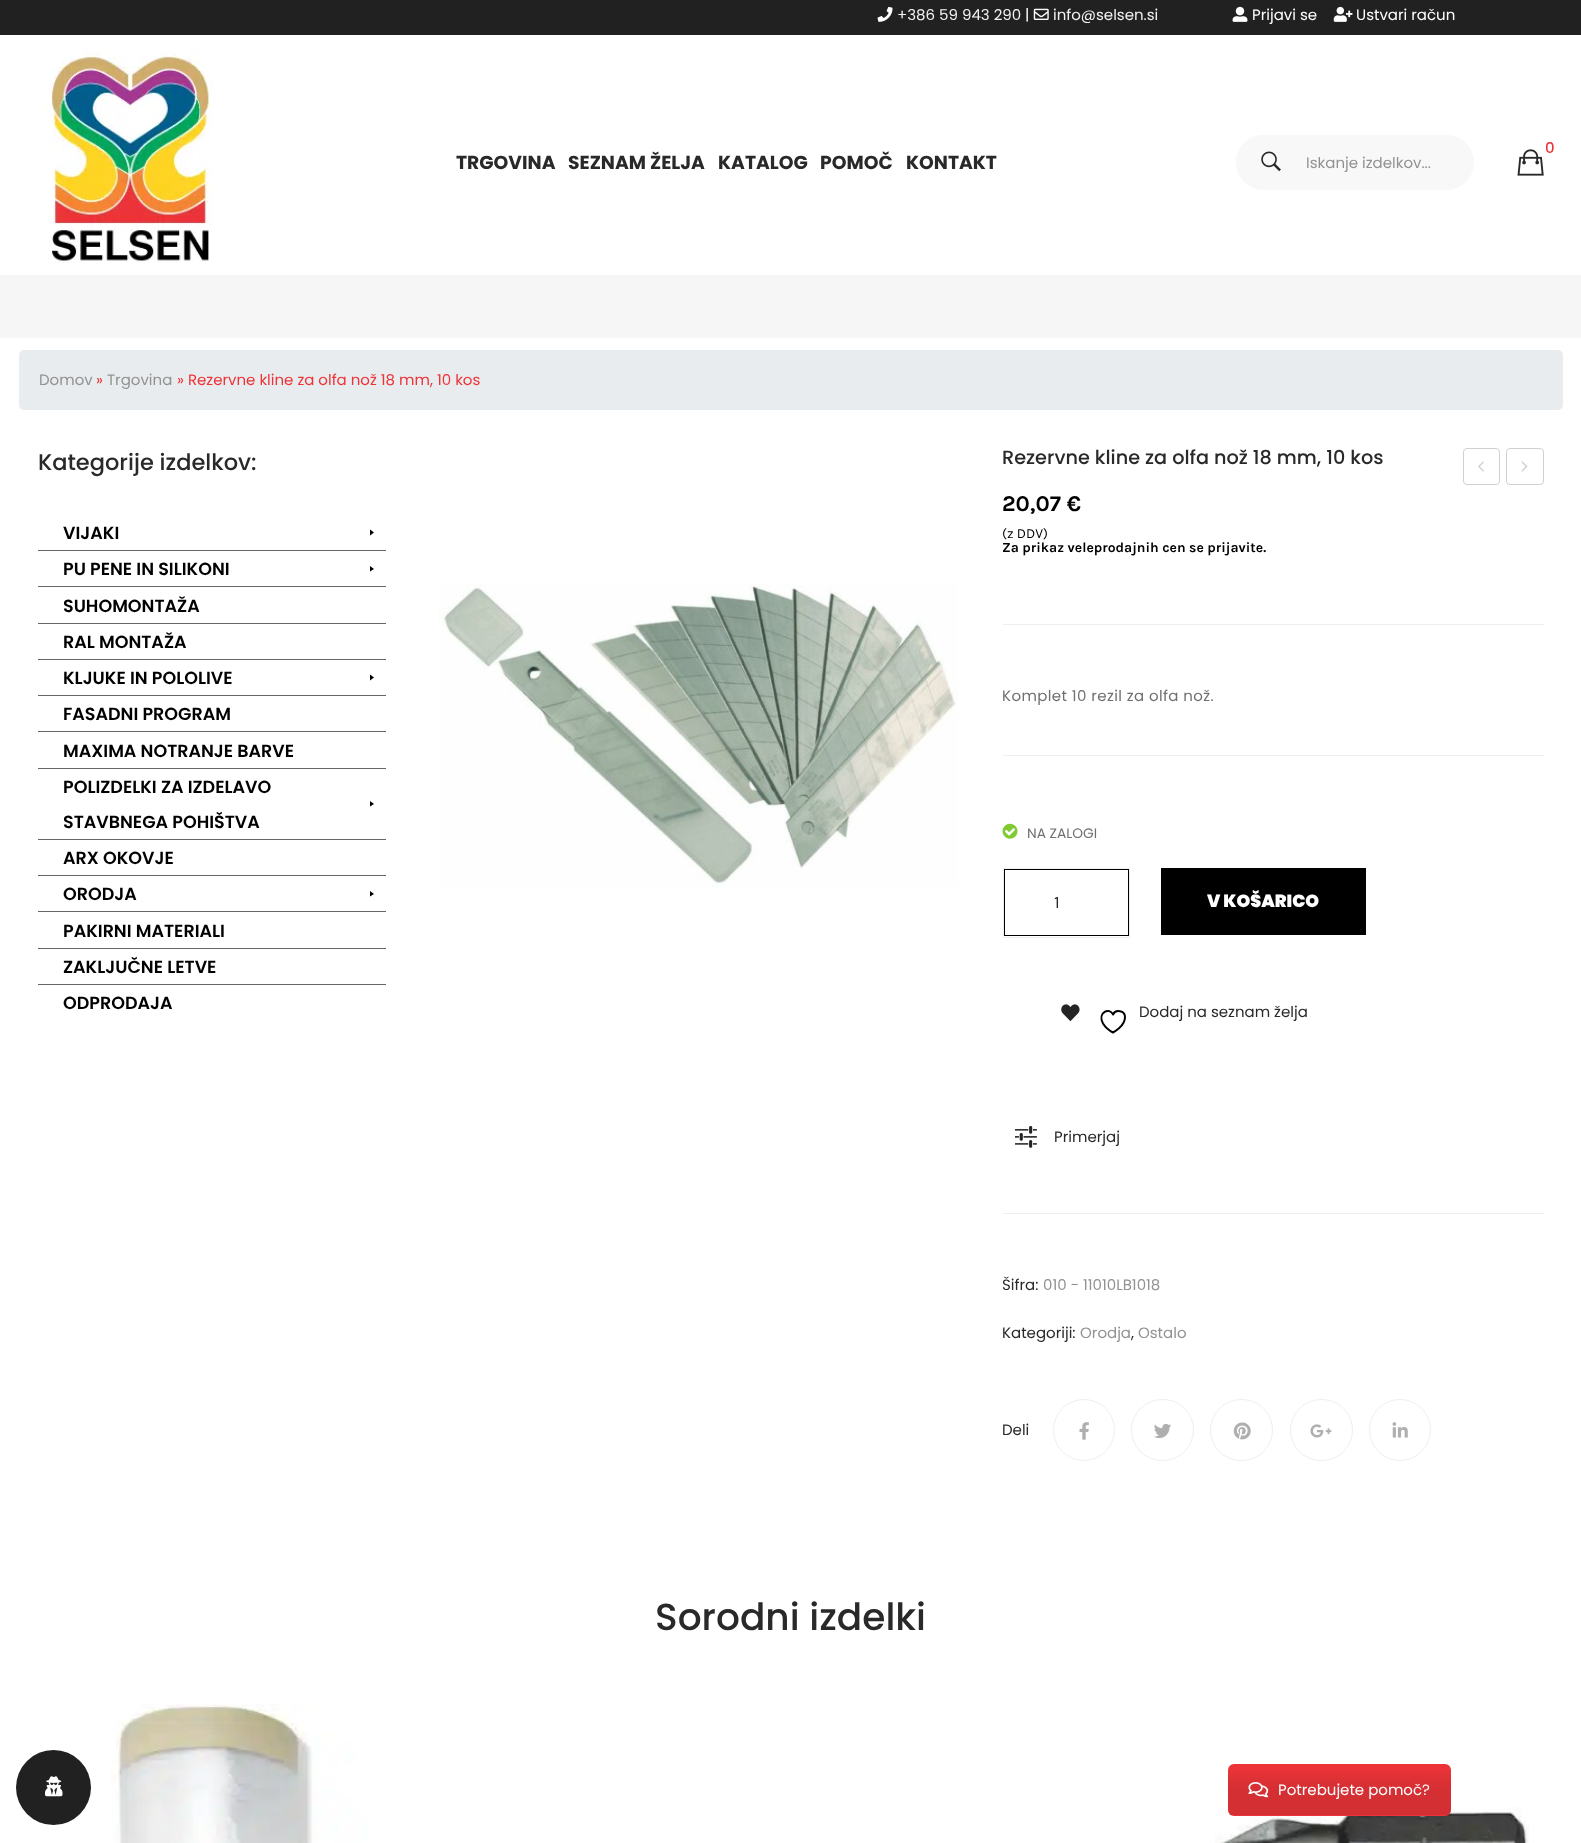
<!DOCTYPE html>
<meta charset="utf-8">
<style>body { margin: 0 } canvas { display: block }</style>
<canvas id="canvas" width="1581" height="1843"></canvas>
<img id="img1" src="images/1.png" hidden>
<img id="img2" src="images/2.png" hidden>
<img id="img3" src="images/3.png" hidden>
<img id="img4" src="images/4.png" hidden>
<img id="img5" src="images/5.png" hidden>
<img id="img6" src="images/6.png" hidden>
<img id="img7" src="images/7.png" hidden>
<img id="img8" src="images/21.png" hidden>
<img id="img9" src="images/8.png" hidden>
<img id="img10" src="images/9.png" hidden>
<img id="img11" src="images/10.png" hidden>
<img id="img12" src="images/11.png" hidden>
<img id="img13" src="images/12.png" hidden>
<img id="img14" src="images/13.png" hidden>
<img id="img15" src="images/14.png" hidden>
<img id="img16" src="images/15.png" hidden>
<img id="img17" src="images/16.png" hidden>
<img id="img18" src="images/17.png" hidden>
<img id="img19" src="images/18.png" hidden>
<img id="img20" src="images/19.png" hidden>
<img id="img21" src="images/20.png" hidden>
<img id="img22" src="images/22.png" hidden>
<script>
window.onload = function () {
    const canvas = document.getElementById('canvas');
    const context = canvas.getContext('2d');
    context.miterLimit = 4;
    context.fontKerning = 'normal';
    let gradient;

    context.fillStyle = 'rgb(255, 255, 255)';
    context.fillRect(0, 0, 1581, 1843);
    context.fillStyle = 'rgb(33, 33, 33)';
    context.fillRect(0, 0, 1581, 35);
    context.drawImage(document.getElementById('img1'), 877, 6, 16, 16);
    context.drawImage(document.getElementById('img2'), 1033, 8, 16, 12);
    context.drawImage(document.getElementById('img3'), 1232, 6, 16, 16);
    context.drawImage(document.getElementById('img4'), 1333, 6, 20, 16);
    context.drawImage(document.getElementById('img5'), 45, 50, 168, 213);
    context.drawImage(document.getElementById('img6'), 1517, 149, 27, 27);
    context.fillStyle = 'rgb(248, 248, 248)';
    context.beginPath();
    context.roundRect(1236, 135, 238, 55, 27.5);
    context.fill();
    context.drawImage(document.getElementById('img7'), 1261, 151, 20, 21);
    context.drawImage(document.getElementById('img8'), 1215, 1807, 314, 36);
    context.fillStyle = 'rgb(236, 52, 56)';
    context.beginPath();
    context.roundRect(1228, 1764, 223, 52, 6);
    context.fill();
    context.save();
    context.beginPath();
    context.roundRect(1228, 1764, 223, 52, 6);
    context.clip();
    gradient = context.createLinearGradient(1450, 1765, 1450, 1815);
    gradient.addColorStop(0, 'rgba(0, 0, 0, 0)');
    gradient.addColorStop(0.5, 'rgba(0, 0, 0, 0.1)');
    gradient.addColorStop(1, 'rgba(0, 0, 0, 0.1)');
    context.fillStyle = gradient;
    context.fillRect(1228, 1770, 223, 45);
    context.restore();
    context.drawImage(document.getElementById('img9'), 1248, 1782, 21, 16);
    context.fillStyle = 'rgb(246, 246, 246)';
    context.fillRect(0, 275, 1581, 63);
    context.fillStyle = 'rgb(233, 236, 239)';
    context.beginPath();
    context.roundRect(19, 350, 1544, 60, 5);
    context.fill();
    context.fillStyle = 'rgb(102, 102, 102)';
    context.fillRect(38, 550, 348, 1);
    context.fillStyle = 'rgb(0, 0, 0)';
    context.beginPath();
    context.moveTo(370, 529.5);
    context.lineTo(374, 532.5);
    context.lineTo(370, 535.5);
    context.closePath();
    context.fill();
    context.fillStyle = 'rgb(102, 102, 102)';
    context.fillRect(38, 586, 348, 1);
    context.fillStyle = 'rgb(0, 0, 0)';
    context.beginPath();
    context.moveTo(370, 566);
    context.lineTo(374, 569);
    context.lineTo(370, 571.5);
    context.closePath();
    context.fill();
    context.fillStyle = 'rgb(102, 102, 102)';
    context.fillRect(38, 623, 348, 1);
    context.fillRect(38, 659, 348, 1);
    context.fillRect(38, 695, 348, 1);
    context.fillStyle = 'rgb(0, 0, 0)';
    context.beginPath();
    context.moveTo(370, 674.5);
    context.lineTo(374, 677.5);
    context.lineTo(370, 680.5);
    context.closePath();
    context.fill();
    context.fillStyle = 'rgb(102, 102, 102)';
    context.fillRect(38, 731, 348, 1);
    context.fillRect(38, 768, 348, 1);
    context.fillRect(38, 839, 348, 1);
    context.fillStyle = 'rgb(0, 0, 0)';
    context.beginPath();
    context.moveTo(370, 801);
    context.lineTo(374, 804);
    context.lineTo(370, 806.5);
    context.closePath();
    context.fill();
    context.fillStyle = 'rgb(102, 102, 102)';
    context.fillRect(38, 875, 348, 1);
    context.fillRect(38, 911, 348, 1);
    context.fillStyle = 'rgb(0, 0, 0)';
    context.beginPath();
    context.moveTo(370, 891);
    context.lineTo(374, 894);
    context.lineTo(370, 896.5);
    context.closePath();
    context.fill();
    context.fillStyle = 'rgb(102, 102, 102)';
    context.fillRect(38, 948, 348, 1);
    context.fillRect(38, 984, 348, 1);
    context.drawImage(document.getElementById('img10'), 439, 584, 519, 303);
    context.beginPath();
    context.roundRect(1463.5, 448.5, 36, 36, 3.5);
    context.strokeStyle = 'rgb(209, 209, 209)';
    context.stroke();
    context.drawImage(document.getElementById('img11'), 1478, 461, 6, 11);
    context.beginPath();
    context.roundRect(1506.5, 448.5, 37, 36, 3.5);
    context.stroke();
    context.drawImage(document.getElementById('img12'), 1521, 461, 7, 11);
    context.fillStyle = 'rgb(239, 239, 239)';
    context.fillRect(1003, 624, 541, 1);
    context.fillRect(1003, 755, 541, 1);
    context.drawImage(document.getElementById('img13'), 1002, 823, 16, 16);
    context.strokeStyle = 'rgb(239, 239, 239)';
    context.strokeRect(1003.5, 868.5, 126, 69);
    context.strokeStyle = 'rgb(0, 0, 0)';
    context.strokeRect(1004.5, 869.5, 124, 66);
    context.fillStyle = 'rgb(0, 0, 0)';
    context.fillRect(1161, 868, 205, 67);
    context.drawImage(document.getElementById('img14'), 1061, 1004, 19, 18);
    context.beginPath();
    context.moveTo(1125, 1017);
    context.bezierCurveTo(1125, 1010.5, 1115.5, 1009, 1113, 1014.5);
    context.bezierCurveTo(1110, 1007, 1097, 1012, 1103, 1023.5);
    context.bezierCurveTo(1105.5, 1027.5, 1109, 1030.5, 1113, 1032.5);
    context.bezierCurveTo(1113, 1032.5, 1125, 1026.5, 1125, 1017);
    context.closePath();
    context.lineWidth = 2;
    context.lineCap = 'round';
    context.lineJoin = 'round';
    context.stroke();
    context.drawImage(document.getElementById('img15'), 1015, 1125, 22, 23);
    context.fillStyle = 'rgb(239, 239, 239)';
    context.fillRect(1003, 1213, 541, 1);
    context.beginPath();
    context.arc(1084, 1430, 30.5, 0, 2 * Math.PI);
    context.strokeStyle = 'rgb(239, 239, 239)';
    context.lineWidth = 1;
    context.stroke();
    context.drawImage(document.getElementById('img16'), 1079, 1422, 10, 18);
    context.beginPath();
    context.roundRect(1131.5, 1399.5, 62, 61, 30.5);
    context.lineJoin = 'miter';
    context.stroke();
    context.drawImage(document.getElementById('img17'), 1154, 1423, 17, 15);
    context.beginPath();
    context.roundRect(1210.5, 1399.5, 62, 61, 30.5);
    context.stroke();
    context.drawImage(document.getElementById('img18'), 1233, 1422, 18, 18);
    context.beginPath();
    context.roundRect(1290.5, 1399.5, 62, 61, 30.5);
    context.stroke();
    context.drawImage(document.getElementById('img19'), 1310, 1424, 22, 14);
    context.beginPath();
    context.arc(1400, 1430, 30.5, 0, 2 * Math.PI);
    context.stroke();
    context.drawImage(document.getElementById('img20'), 1392, 1422, 16, 16);
    context.drawImage(document.getElementById('img21'), 111, 1704, 257, 139);
    context.fillStyle = 'rgb(33, 33, 33)';
    context.beginPath();
    context.arc(53.5, 1787.5, 37.5, 0, 2 * Math.PI);
    context.fill();
    context.drawImage(document.getElementById('img22'), 45, 1776, 18, 21);
    context.font = '15px Poppins';
    context.fillStyle = 'rgb(241, 241, 241)';
    context.fillText('+386 59 943 290', 897, 20);
    context.fillStyle = 'rgb(255, 255, 255)';
    context.fillText('|', 1025, 20);
    context.fillStyle = 'rgb(241, 241, 241)';
    context.fillText('info@selsen.si', 1053, 20);
    context.fillStyle = 'rgb(255, 255, 255)';
    context.fillText('Prijavi se', 1252, 20);
    context.fillText('Ustvari račun', 1356, 20);
    context.font = 'bold 18.75px Poppins';
    context.fillStyle = 'rgb(41, 41, 41)';
    context.fillText('TRGOVINA', 456, 169);
    context.fillText('SEZNAM ŽELJA', 568, 169);
    context.fillText('KATALOG', 718, 169);
    context.fillText('POMOČ', 820, 169);
    context.fillText('KONTAKT', 906, 169);
    context.font = '500 15px Poppins';
    context.fillStyle = 'rgb(236, 52, 56)';
    context.fillText('0', 1545, 153);
    context.font = '15px Poppins';
    context.fillStyle = 'rgb(146, 146, 146)';
    context.fillText('Iskanje izdelkov...', 1306, 168);
    context.fillStyle = 'rgb(255, 255, 255)';
    context.fillText('Potrebujete pomoč?', 1278, 1795);
    context.fillStyle = 'rgb(146, 146, 146)';
    context.fillText('Domov', 39, 385);
    context.fillStyle = 'rgb(236, 52, 56)';
    context.fillText('»', 96, 385);
    context.fillStyle = 'rgb(146, 146, 146)';
    context.fillText('Trgovina', 107, 385);
    context.fillStyle = 'rgb(236, 52, 56)';
    context.fillText('» Rezervne kline za olfa nož 18 mm, 10 kos', 177, 385);
    context.font = '500 22.5px Poppins';
    context.fillStyle = 'rgb(41, 41, 41)';
    context.fillText('Kategorije izdelkov:', 38, 470);
    context.font = '600 17.5px Poppins';
    context.fillStyle = 'rgb(0, 0, 0)';
    context.fillText('VIJAKI', 63, 539);
    context.fillText('PU PENE IN SILIKONI', 63, 575);
    context.fillText('SUHOMONTAŽA', 63, 612);
    context.fillText('RAL MONTAŽA', 63, 648);
    context.fillText('KLJUKE IN POLOLIVE', 63, 684);
    context.fillText('FASADNI PROGRAM', 63, 720);
    context.fillText('MAXIMA NOTRANJE BARVE', 63, 757);
    context.fillText('POLIZDELKI ZA IZDELAVO', 63, 793);
    context.fillText('STAVBNEGA POHIŠTVA', 63, 828);
    context.fillText('ARX OKOVJE', 63, 864);
    context.fillText('ORODJA', 63, 900);
    context.fillText('PAKIRNI MATERIALI', 63, 937);
    context.fillText('ZAKLJUČNE LETVE', 63, 973);
    context.fillText('ODPRODAJA', 63, 1009);
    context.font = '500 19.25px Poppins';
    context.fillStyle = 'rgb(41, 41, 41)';
    context.fillText('Rezervne kline za olfa nož 18 mm, 10 kos', 1002, 464);
    context.font = 'bold 22.5px Karla';
    context.fillStyle = 'rgb(0, 0, 0)';
    context.fillText('20,07 €', 1002, 511);
    context.font = '13.9px Karla';
    context.fillText('(z DDV)', 1002, 538);
    context.font = 'bold 13.9px Karla';
    context.fillText('Za prikaz veleprodajnih cen se prijavite.', 1002, 552);
    context.letterSpacing = '0.4px';
    context.font = '15px Poppins';
    context.fillStyle = 'rgb(112, 112, 112)';
    context.fillText('Komplet 10 rezil za olfa nož.', 1002, 701);
    context.letterSpacing = '0px';
    context.font = '13.75px Poppins';
    context.fillText('NA ZALOGI', 1027, 838);
    context.font = '17.5px Karla';
    context.fillStyle = 'rgb(41, 41, 41)';
    context.fillText('1', 1054, 908);
    context.font = '900 17.5px Poppins';
    context.fillStyle = 'rgb(255, 255, 255)';
    context.fillText('V KOŠARICO', 1207, 907);
    context.font = '15px Poppins';
    context.fillStyle = 'rgb(41, 41, 41)';
    context.fillText('Dodaj na seznam želja', 1139, 1017);
    context.fillText('Primerjaj', 1054, 1142);
    context.fillText('Šifra:', 1002, 1290);
    context.fillStyle = 'rgb(146, 146, 146)';
    context.fillText('010 - 11010LB1018', 1043, 1290);
    context.fillStyle = 'rgb(41, 41, 41)';
    context.fillText('Kategoriji:', 1002, 1338);
    context.fillStyle = 'rgb(146, 146, 146)';
    context.fillText('Orodja', 1080, 1338);
    context.fillStyle = 'rgb(41, 41, 41)';
    context.fillText(',', 1131, 1338);
    context.fillStyle = 'rgb(146, 146, 146)';
    context.fillText('Ostalo', 1138, 1338);
    context.fillStyle = 'rgb(41, 41, 41)';
    context.fillText('Deli', 1002, 1435);
    context.font = '500 37.5px Poppins';
    context.fillText('Sorodni izdelki', 655, 1630);
};
</script>
